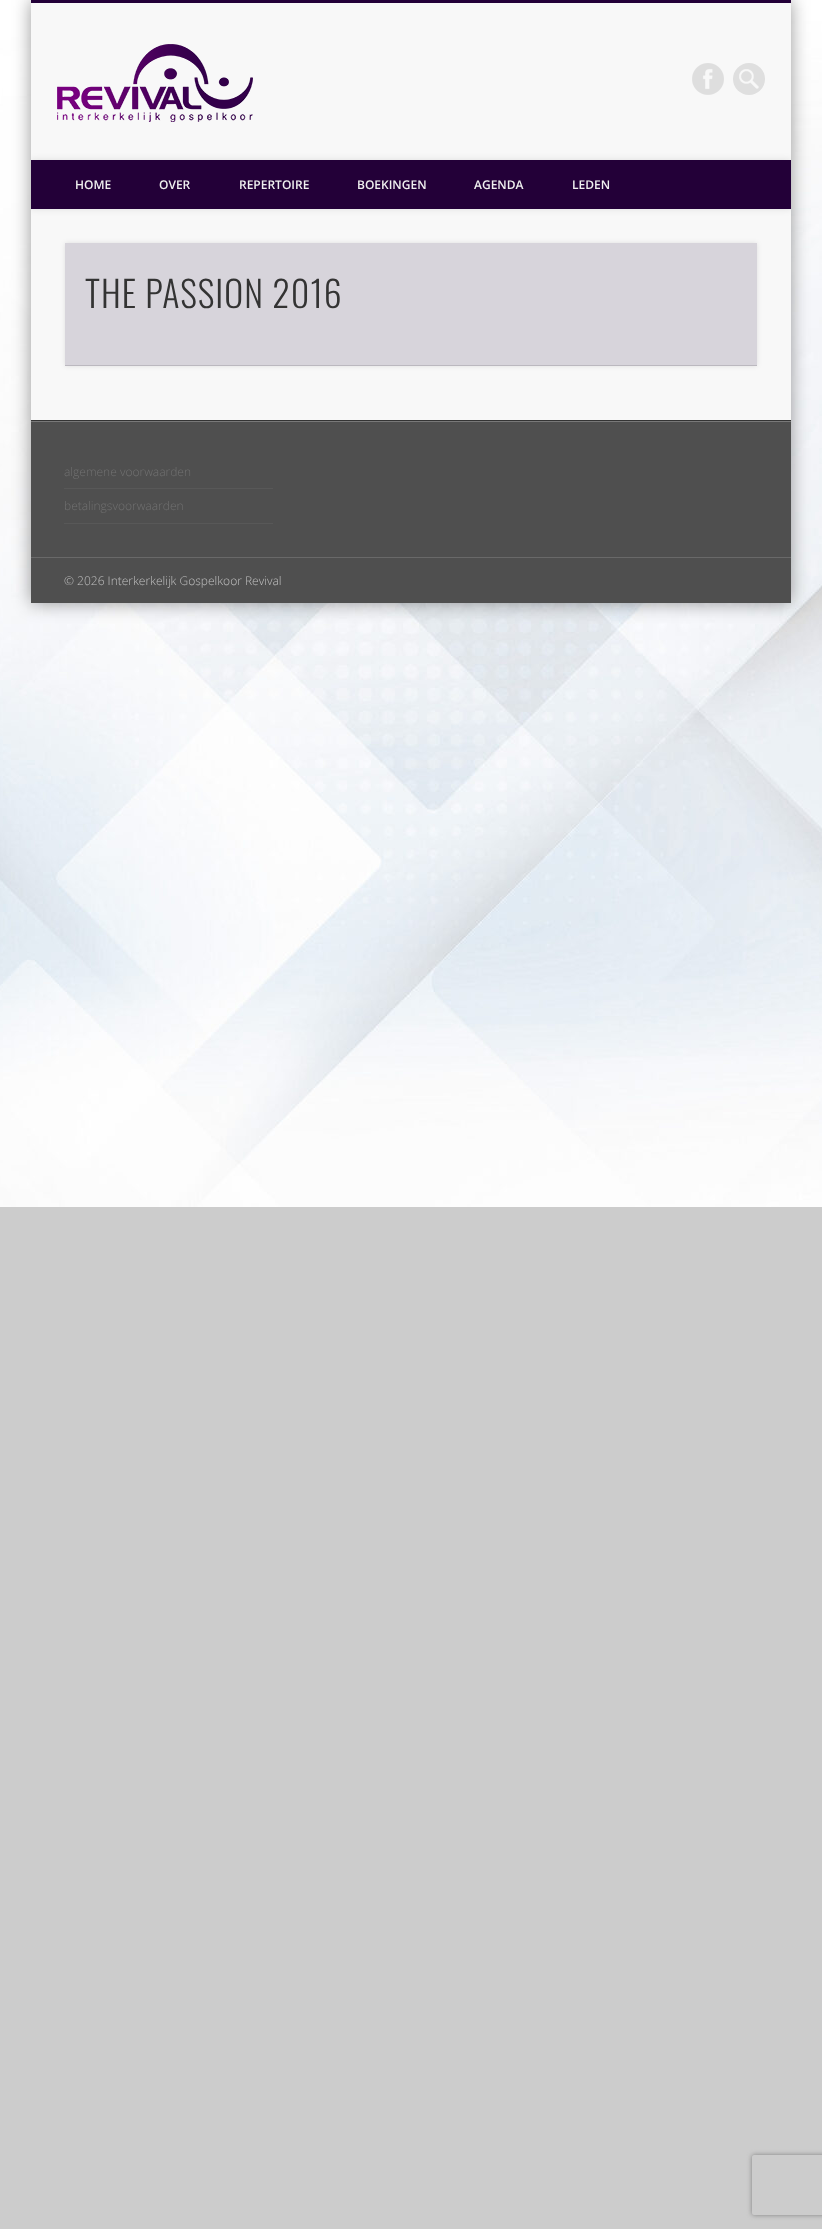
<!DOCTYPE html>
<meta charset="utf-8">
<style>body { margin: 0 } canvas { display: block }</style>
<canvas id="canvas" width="822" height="2229"></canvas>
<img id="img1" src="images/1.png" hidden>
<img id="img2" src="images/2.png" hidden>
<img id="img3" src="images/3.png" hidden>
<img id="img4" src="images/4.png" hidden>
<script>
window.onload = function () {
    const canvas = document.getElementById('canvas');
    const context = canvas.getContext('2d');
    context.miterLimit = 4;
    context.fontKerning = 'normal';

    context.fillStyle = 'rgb(204, 204, 204)';
    context.fillRect(0, 0, 822, 2229);
    context.drawImage(document.getElementById('img1'), 0, 0, 822, 1207);
    context.fillStyle = 'rgba(0, 0, 0, 0.4)';
    context.filter = 'blur(9px)';
    context.beginPath();
    context.rect(31, 0, 760, 603);
    context.fill();
    context.filter = 'none';
    context.fillStyle = 'rgb(248, 248, 248)';
    context.fillRect(31, 3, 760, 417);
    context.fillStyle = 'rgb(35, 0, 56)';
    context.fillRect(31, 0, 760, 3);
    context.drawImage(document.getElementById('img2'), 57, 44, 196, 78);
    context.drawImage(document.getElementById('img3'), 692, 63, 32, 32);
    context.fillStyle = 'rgb(223, 223, 223)';
    context.beginPath();
    context.arc(749, 79, 16, 0, 2 * Math.PI);
    context.fill();
    context.drawImage(document.getElementById('img4'), 739, 69, 20, 20);
    context.save();
    context.beginPath();
    context.rect(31, 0, 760, 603);
    context.clip();
    context.fillStyle = 'rgba(0, 0, 0, 0.1)';
    context.filter = 'blur(3.5px)';
    context.beginPath();
    context.rect(31, 160, 760, 49);
    context.fill();
    context.filter = 'none';
    context.restore();
    context.fillStyle = 'rgb(35, 0, 56)';
    context.fillRect(31, 160, 760, 49);
    context.fillStyle = 'rgba(0, 0, 0, 0.1)';
    context.filter = 'blur(2.5px)';
    context.beginPath();
    context.rect(65, 243, 692, 123);
    context.fill();
    context.filter = 'none';
    context.fillStyle = 'rgb(215, 212, 219)';
    context.fillRect(65, 243, 692, 122);
    context.fillStyle = 'rgb(187, 184, 191)';
    context.fillRect(65, 365, 692, 1);
    context.fillStyle = 'rgb(52, 52, 52)';
    context.fillRect(31, 420, 760, 1);
    context.fillStyle = 'rgb(79, 79, 79)';
    context.fillRect(31, 422, 760, 135);
    context.fillStyle = 'rgb(120, 120, 120)';
    context.fillRect(31, 421, 760, 1);
    context.fillStyle = 'rgb(88, 88, 88)';
    context.fillRect(64, 488, 209, 1);
    context.fillRect(64, 523, 209, 1);
    context.fillStyle = 'rgb(79, 79, 79)';
    context.fillRect(31, 558, 760, 45);
    context.fillStyle = 'rgb(105, 105, 105)';
    context.fillRect(31, 557, 760, 1);
    context.save();
    context.beginPath();
    context.moveTo(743, 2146);
    context.lineTo(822, 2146);
    context.lineTo(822, 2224);
    context.lineTo(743, 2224);
    context.closePath();
    context.moveTo(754, 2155);
    context.lineTo(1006, 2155);
    context.bezierCurveTo(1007, 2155, 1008, 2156, 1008, 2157);
    context.lineTo(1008, 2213);
    context.bezierCurveTo(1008, 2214, 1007, 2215, 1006, 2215);
    context.lineTo(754, 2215);
    context.bezierCurveTo(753, 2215, 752, 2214, 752, 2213);
    context.lineTo(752, 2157);
    context.bezierCurveTo(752, 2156, 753, 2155, 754, 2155);
    context.closePath();
    context.clip('evenodd');
    context.fillStyle = 'rgb(128, 128, 128)';
    context.filter = 'blur(2.5px)';
    context.beginPath();
    context.roundRect(752, 2155, 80, 60, 2);
    context.fill();
    context.filter = 'none';
    context.restore();
    context.font = '600 12px Open Sans';
    context.fillStyle = 'rgb(240, 240, 240)';
    context.fillText('HOME', 75, 189);
    context.fillText('OVER', 159, 189);
    context.fillText('REPERTOIRE', 239, 189);
    context.fillText('BOEKINGEN', 357, 189);
    context.fillText('AGENDA', 474, 189);
    context.fillText('LEDEN', 572, 189);
    context.letterSpacing = '1px';
    context.font = '300 36px Oswald';
    context.fillStyle = 'rgb(51, 51, 51)';
    context.fillText('THE PASSION 2016', 85, 308);
    context.letterSpacing = '0px';
    context.font = '300 12px Open Sans';
    context.fillStyle = 'rgb(113, 113, 113)';
    context.fillText('algemene voorwaarden', 64, 476);
    context.fillText('betalingsvoorwaarden', 64, 510);
    context.fillStyle = 'rgb(192, 192, 192)';
    context.fillText('© 2026 Interkerkelijk Gospelkoor Revival', 64, 585);
};
</script>
